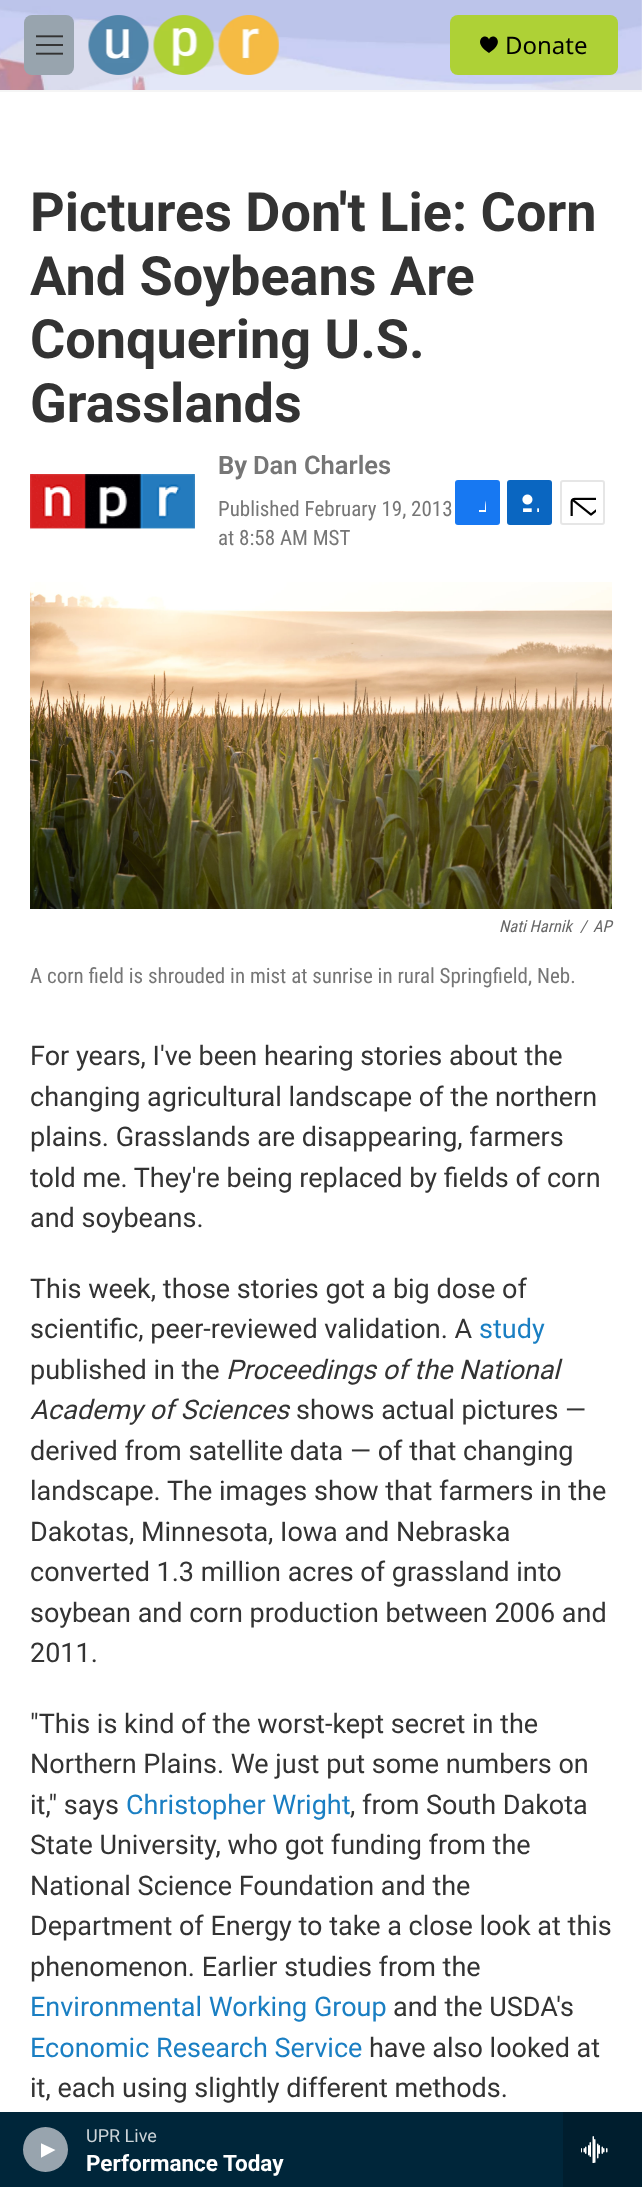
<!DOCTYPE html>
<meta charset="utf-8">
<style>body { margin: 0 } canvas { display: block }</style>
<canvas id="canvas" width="642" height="2187"></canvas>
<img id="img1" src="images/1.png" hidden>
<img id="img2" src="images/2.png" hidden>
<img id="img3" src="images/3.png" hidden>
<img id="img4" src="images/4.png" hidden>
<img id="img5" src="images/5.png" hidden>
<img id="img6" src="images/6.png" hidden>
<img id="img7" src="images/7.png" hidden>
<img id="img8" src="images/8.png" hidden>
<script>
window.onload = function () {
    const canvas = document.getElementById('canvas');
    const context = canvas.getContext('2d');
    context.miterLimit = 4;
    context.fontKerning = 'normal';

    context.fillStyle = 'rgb(255, 255, 255)';
    context.fillRect(0, 0, 642, 2187);
    context.fillStyle = 'rgb(245, 245, 245)';
    context.fillRect(0, 90, 642, 2);
    context.drawImage(document.getElementById('img1'), 0, 0, 642, 90);
    context.fillStyle = 'rgb(152, 164, 174)';
    context.beginPath();
    context.roundRect(24, 15, 50, 60, 8);
    context.fill();
    context.drawImage(document.getElementById('img2'), 36, 35, 27, 20);
    context.drawImage(document.getElementById('img3'), 88, 15, 191, 60);
    context.fillStyle = 'rgb(174, 209, 54)';
    context.beginPath();
    context.roundRect(450, 15, 168, 60, 8);
    context.fill();
    context.fillStyle = 'rgb(0, 0, 0)';
    context.beginPath();
    context.moveTo(489, 39.5);
    context.bezierCurveTo(486, 31.5, 470.5, 41.5, 489, 53);
    context.bezierCurveTo(507.5, 41.5, 492, 31.5, 489, 39.5);
    context.closePath();
    context.fill();
    context.fillStyle = 'rgb(0, 38, 58)';
    context.fillRect(0, 2112, 563, 75);
    context.fillStyle = 'rgb(152, 164, 174)';
    context.beginPath();
    context.arc(45.5, 2149.5, 22.5, 0, 2 * Math.PI);
    context.fill();
    context.save();
    context.beginPath();
    context.rect(41, 2142, 15, 17);
    context.clip();
    context.fillStyle = 'rgb(255, 255, 255)';
    context.beginPath();
    context.moveTo(40.5, 2143);
    context.lineTo(55.5, 2150);
    context.lineTo(40.5, 2158);
    context.closePath();
    context.fill();
    context.restore();
    context.fillStyle = 'rgb(0, 30, 46)';
    context.fillRect(563, 2112, 79, 75);
    context.drawImage(document.getElementById('img4'), 581, 2136, 27, 27);
    context.drawImage(document.getElementById('img5'), 30, 474, 165, 56);
    context.fillStyle = 'rgb(23, 120, 242)';
    context.beginPath();
    context.roundRect(455, 480, 45, 45, 3);
    context.fill();
    context.save();
    context.beginPath();
    context.rect(468, 494, 18, 18);
    context.clip();
    context.fillStyle = 'rgb(255, 255, 255)';
    context.beginPath();
    context.moveTo(493, 525);
    context.lineTo(485, 525);
    context.lineTo(485, 518);
    context.lineTo(479, 518);
    context.lineTo(479, 510);
    context.lineTo(485, 510);
    context.bezierCurveTo(485, 498.5, 487, 492.5, 500, 494);
    context.lineTo(500, 501);
    context.bezierCurveTo(492, 501, 493, 503.5, 493, 510);
    context.lineTo(500, 510);
    context.lineTo(499, 518);
    context.lineTo(493, 518);
    context.closePath();
    context.fill();
    context.restore();
    context.fillStyle = 'rgb(10, 102, 193)';
    context.beginPath();
    context.roundRect(507, 480, 45, 45, 3);
    context.fill();
    context.drawImage(document.getElementById('img6'), 522, 494, 17, 18);
    context.beginPath();
    context.roundRect(561, 481, 43, 43, 2);
    context.strokeStyle = 'rgb(230, 230, 230)';
    context.lineWidth = 2;
    context.stroke();
    context.drawImage(document.getElementById('img7'), 570, 497, 26, 19);
    context.drawImage(document.getElementById('img8'), 30, 582, 582, 327);
    context.font = '24px Noto Sans';
    context.fillStyle = 'rgb(0, 0, 0)';
    context.fillText('Donate', 505, 54);
    context.font = '18px Roboto';
    context.fillStyle = 'rgb(204, 212, 216)';
    context.fillText('UPR Live', 86, 2142);
    context.font = 'bold 22.5px "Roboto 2"';
    context.fillStyle = 'rgb(255, 255, 255)';
    context.fillText('Performance Today', 86, 2171);
    context.font = 'bold 54px Roboto';
    context.fillStyle = 'rgb(51, 51, 51)';
    context.fillText('Pictures Don\'t Lie: Corn', 30, 231);
    context.fillText('And Soybeans Are', 30, 295);
    context.fillText('Conquering U.S.', 30, 358);
    context.fillText('Grasslands', 30, 422);
    context.font = 'bold 25.5px Roboto';
    context.fillStyle = 'rgb(118, 118, 118)';
    context.fillText('By', 218, 474);
    context.font = '600 25.5px Roboto';
    context.fillText('Dan Charles', 253, 474);
    context.font = '21px Roboto Condensed';
    context.fillText('Published February 19, 2013', 218, 516);
    context.fillText('at 8:58 AM MST', 218, 545);
    context.font = 'italic 16.5px Roboto Condensed';
    context.fillStyle = 'rgb(102, 102, 102)';
    context.fillText('Nati Harnik', 499, 932);
    context.fillText('/', 580, 932);
    context.fillText('AP', 593, 932);
    context.font = '21px Roboto Condensed';
    context.fillStyle = 'rgb(118, 118, 118)';
    context.fillText('A corn field is shrouded in mist at sunrise in rural Springfield, Neb.', 30, 983);
    context.font = '27px Roboto';
    context.fillStyle = 'rgb(51, 51, 51)';
    context.fillText('For years, I\'ve been hearing stories about the', 30, 1065);
    context.fillText('changing agricultural landscape of the northern', 30, 1106);
    context.fillText('plains. Grasslands are disappearing, farmers', 30, 1146);
    context.fillText('told me. They\'re being replaced by fields of corn', 30, 1187);
    context.fillText('and soybeans.', 30, 1227);
    context.fillText('This week, those stories got a big dose of', 30, 1298);
    context.fillText('scientific, peer-reviewed validation. A', 30, 1338);
    context.fillStyle = 'rgb(26, 127, 195)';
    context.fillText('study', 479, 1338);
    context.fillStyle = 'rgb(51, 51, 51)';
    context.fillText('published in the', 30, 1379);
    context.font = 'italic 27px Roboto';
    context.fillText('Proceedings of the National', 226, 1379);
    context.fillText('Academy of Sciences', 30, 1419);
    context.font = '27px Roboto';
    context.fillText('shows actual pictures —', 296, 1419);
    context.fillText('derived from satellite data — of that changing', 30, 1460);
    context.fillText('landscape. The images show that farmers in the', 30, 1500);
    context.fillText('Dakotas, Minnesota, Iowa and Nebraska', 30, 1541);
    context.fillText('converted 1.3 million acres of grassland into', 30, 1581);
    context.fillText('soybean and corn production between 2006 and', 30, 1622);
    context.fillText('2011.', 30, 1662);
    context.fillText('"This is kind of the worst-kept secret in the', 30, 1733);
    context.fillText('Northern Plains. We just put some numbers on', 30, 1773);
    context.fillText('it," says', 30, 1814);
    context.fillStyle = 'rgb(26, 127, 195)';
    context.fillText('Christopher Wright', 126, 1814);
    context.fillStyle = 'rgb(51, 51, 51)';
    context.fillText(', from South Dakota', 350, 1814);
    context.fillText('State University, who got funding from the', 30, 1854);
    context.fillText('National Science Foundation and the', 30, 1895);
    context.fillText('Department of Energy to take a close look at this', 30, 1935);
    context.fillText('phenomenon. Earlier studies from the', 30, 1976);
    context.fillStyle = 'rgb(26, 127, 195)';
    context.fillText('Environmental Working Group', 30, 2016);
    context.fillStyle = 'rgb(51, 51, 51)';
    context.fillText('and the USDA\'s', 393, 2016);
    context.fillStyle = 'rgb(26, 127, 195)';
    context.fillText('Economic Research Service', 30, 2057);
    context.fillStyle = 'rgb(51, 51, 51)';
    context.fillText('have also looked at', 369, 2057);
    context.fillText('it, each using slightly different methods.', 30, 2097);
};
</script>
